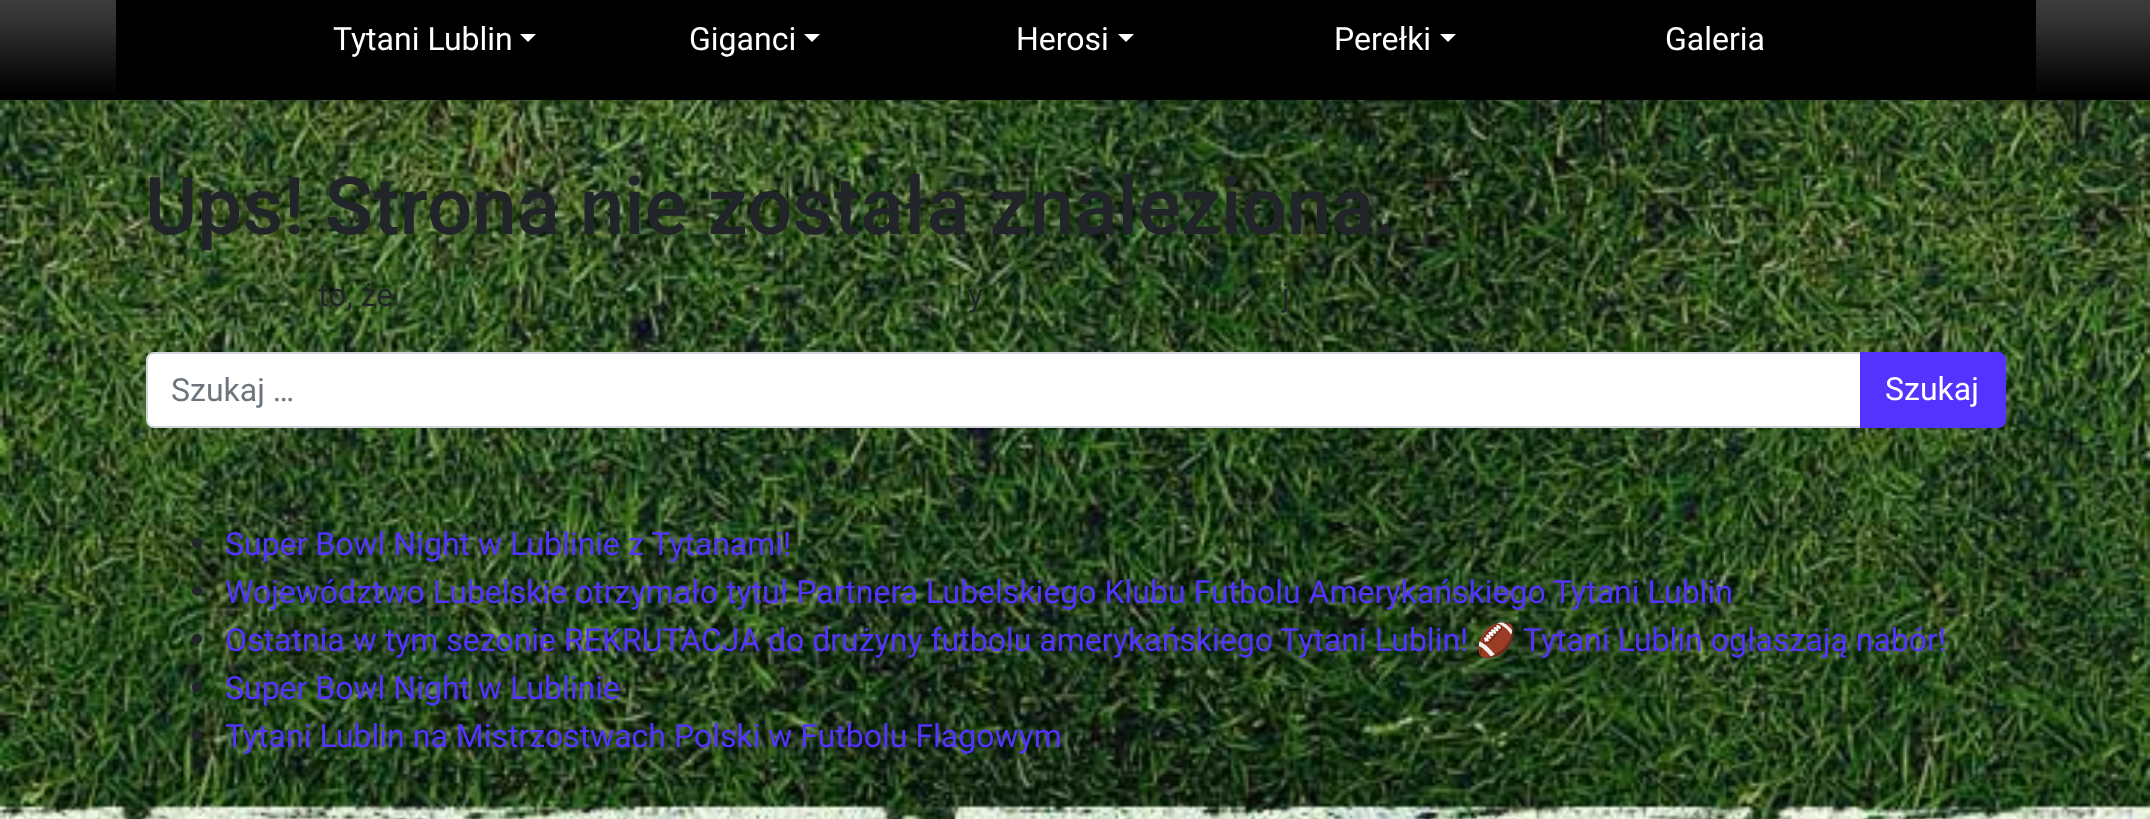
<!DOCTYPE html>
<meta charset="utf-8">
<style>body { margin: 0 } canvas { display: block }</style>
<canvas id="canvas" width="2150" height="819"></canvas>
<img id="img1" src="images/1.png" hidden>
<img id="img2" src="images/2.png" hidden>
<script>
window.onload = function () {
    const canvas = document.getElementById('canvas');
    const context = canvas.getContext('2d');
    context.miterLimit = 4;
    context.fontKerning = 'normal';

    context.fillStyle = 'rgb(255, 255, 255)';
    context.fillRect(0, 0, 2150, 819);
    context.drawImage(document.getElementById('img1'), 0, 100, 2150, 719);
    context.drawImage(document.getElementById('img2'), 0, 0, 2150, 100);
    context.fillStyle = 'rgb(0, 0, 0)';
    context.fillRect(116, 0, 1920, 93);
    context.fillStyle = 'rgb(255, 255, 255)';
    context.beginPath();
    context.moveTo(520, 34);
    context.lineTo(536, 34);
    context.lineTo(528, 42);
    context.closePath();
    context.fill();
    context.beginPath();
    context.moveTo(804, 34);
    context.lineTo(820, 34);
    context.lineTo(812, 42);
    context.closePath();
    context.fill();
    context.beginPath();
    context.moveTo(1118, 34);
    context.lineTo(1134, 34);
    context.lineTo(1126, 42);
    context.closePath();
    context.fill();
    context.beginPath();
    context.moveTo(1440, 34);
    context.lineTo(1456, 34);
    context.lineTo(1448, 42);
    context.closePath();
    context.fill();
    context.beginPath();
    context.roundRect(147, 353, 1714, 74, [7, 0, 0, 7]);
    context.fill();
    context.strokeStyle = 'rgb(206, 212, 218)';
    context.lineWidth = 2;
    context.stroke();
    context.fillStyle = 'rgb(85, 51, 255)';
    context.beginPath();
    context.roundRect(1861, 353, 144, 74, [0, 7, 7, 0]);
    context.fill();
    context.strokeStyle = 'rgb(85, 51, 255)';
    context.stroke();
    context.fillStyle = 'rgb(33, 37, 41)';
    context.beginPath();
    context.arc(197, 543, 5, 0, 2 * Math.PI);
    context.fill();
    context.beginPath();
    context.arc(197, 591, 5, 0, 2 * Math.PI);
    context.fill();
    context.beginPath();
    context.arc(197, 639, 5, 0, 2 * Math.PI);
    context.fill();
    context.beginPath();
    context.arc(197, 687, 5, 0, 2 * Math.PI);
    context.fill();
    context.beginPath();
    context.arc(197, 735, 5, 0, 2 * Math.PI);
    context.fill();
    context.font = '32px Roboto';
    context.fillStyle = 'rgb(255, 255, 255)';
    context.fillText('Tytani Lublin', 333, 50);
    context.fillText('Giganci', 689, 50);
    context.fillText('Herosi', 1016, 50);
    context.fillText('Perełki', 1334, 50);
    context.fillText('Galeria', 1665, 50);
    context.font = '500 80px Roboto';
    context.fillStyle = 'rgb(33, 37, 41)';
    context.fillText('Ups! Strona nie została znaleziona.', 145, 234);
    context.font = '32px Roboto';
    context.fillText('to, że', 318, 306);
    context.fillText('.', 727, 306);
    context.fillText('y', 968, 306);
    context.fillText('j', 1282, 306);
    context.fillStyle = 'rgb(108, 117, 125)';
    context.fillText('Szukaj …', 171, 401);
    context.fillStyle = 'rgb(255, 255, 255)';
    context.fillText('Szukaj', 1885, 400);
    context.fillStyle = 'rgb(85, 51, 255)';
    context.fillText('Super Bowl Night w Lublinie z Tytanami!', 225, 555);
    context.fillText('Województwo Lubelskie otrzymało tytuł Partnera Lubelskiego Klubu Futbolu Amerykańskiego Tytani Lublin', 225, 603);
    context.fillText('Ostatnia w tym sezonie REKRUTACJA do drużyny futbolu amerykańskiego Tytani Lublin!', 225, 651);
    context.font = '32px Noto Color Emoji';
    context.fillText('🏈', 1476, 651);
    context.font = '32px Roboto';
    context.fillText('Tytani Lublin ogłaszają nabór!', 1523, 651);
    context.fillText('Super Bowl Night w Lublinie', 225, 699);
    context.fillText('Tytani Lublin na Mistrzostwach Polski w Futbolu Flagowym', 225, 747);
};
</script>
